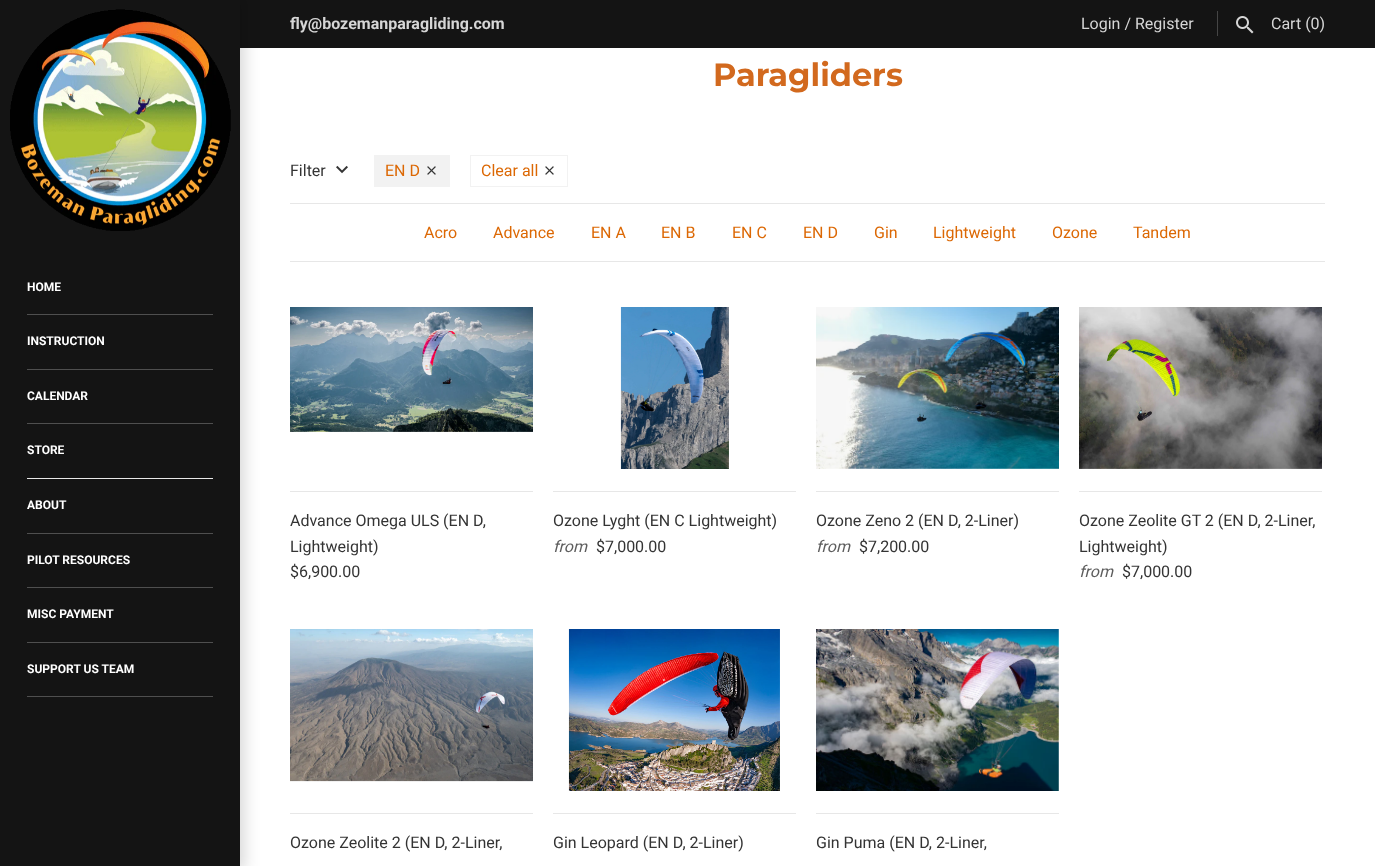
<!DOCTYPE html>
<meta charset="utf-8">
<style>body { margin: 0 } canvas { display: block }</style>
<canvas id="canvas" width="1375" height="866"></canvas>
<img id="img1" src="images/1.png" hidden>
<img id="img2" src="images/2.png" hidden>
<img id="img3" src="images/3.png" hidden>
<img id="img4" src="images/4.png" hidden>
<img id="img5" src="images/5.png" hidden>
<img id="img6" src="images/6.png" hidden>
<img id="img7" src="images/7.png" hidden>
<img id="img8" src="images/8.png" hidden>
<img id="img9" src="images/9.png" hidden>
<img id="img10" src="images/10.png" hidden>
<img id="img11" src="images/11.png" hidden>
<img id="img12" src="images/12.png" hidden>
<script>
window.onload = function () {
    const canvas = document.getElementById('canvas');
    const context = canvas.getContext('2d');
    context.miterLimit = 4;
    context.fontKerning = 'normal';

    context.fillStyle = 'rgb(255, 255, 255)';
    context.fillRect(0, 0, 1375, 866);
    context.fillStyle = 'rgb(20, 20, 20)';
    context.fillRect(240, 0, 1135, 48);
    context.fillStyle = 'rgb(69, 69, 69)';
    context.fillRect(1217, 11, 1, 25);
    context.drawImage(document.getElementById('img1'), 1236, 16, 18, 18);
    context.fillStyle = 'rgba(0, 0, 0, 0.15)';
    context.filter = 'blur(7.5px)';
    context.beginPath();
    context.rect(-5, -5, 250, 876);
    context.fill();
    context.filter = 'none';
    context.fillStyle = 'rgb(20, 20, 20)';
    context.fillRect(0, 0, 240, 866);
    context.drawImage(document.getElementById('img2'), 10, 9, 221, 222);
    context.fillStyle = 'rgb(79, 79, 79)';
    context.fillRect(27, 314, 186, 1);
    context.fillRect(27, 369, 186, 1);
    context.fillRect(27, 423, 186, 1);
    context.fillStyle = 'rgb(232, 232, 232)';
    context.fillRect(27, 478, 186, 1);
    context.fillStyle = 'rgb(79, 79, 79)';
    context.fillRect(27, 533, 186, 1);
    context.fillRect(27, 587, 186, 1);
    context.fillRect(27, 642, 186, 1);
    context.fillRect(27, 696, 186, 1);
    context.fillStyle = 'rgb(231, 231, 231)';
    context.fillRect(290, 203, 1035, 1);
    context.drawImage(document.getElementById('img3'), 336, 165, 12, 9);
    context.fillStyle = 'rgb(242, 242, 242)';
    context.fillRect(374, 155, 76, 32);
    context.drawImage(document.getElementById('img4'), 427, 166, 9, 9);
    context.strokeStyle = 'rgb(242, 242, 242)';
    context.strokeRect(470.5, 155.5, 97, 31);
    context.drawImage(document.getElementById('img5'), 545, 166, 9, 9);
    context.fillStyle = 'rgb(231, 231, 231)';
    context.fillRect(290, 261, 1035, 1);
    context.drawImage(document.getElementById('img6'), 290, 307, 243, 125);
    context.fillRect(290, 491, 243, 1);
    context.drawImage(document.getElementById('img7'), 620, 307, 109, 162);
    context.fillRect(553, 491, 243, 1);
    context.drawImage(document.getElementById('img8'), 816, 307, 243, 162);
    context.fillRect(816, 491, 243, 1);
    context.drawImage(document.getElementById('img9'), 1079, 307, 243, 162);
    context.fillRect(1079, 491, 243, 1);
    context.drawImage(document.getElementById('img10'), 290, 629, 243, 153);
    context.fillRect(290, 813, 243, 1);
    context.drawImage(document.getElementById('img11'), 568, 629, 212, 162);
    context.fillRect(553, 813, 243, 1);
    context.drawImage(document.getElementById('img12'), 816, 629, 243, 162);
    context.fillRect(816, 813, 243, 1);
    context.font = 'bold 16px Roboto';
    context.fillStyle = 'rgb(214, 214, 214)';
    context.fillText('fly@bozemanparagliding.com', 290, 29);
    context.font = '16px Roboto';
    context.fillText('Login / Register', 1081, 29);
    context.fillText('Cart (0)', 1271, 29);
    context.font = 'bold 12px Roboto';
    context.fillStyle = 'rgb(255, 255, 255)';
    context.fillText('HOME', 27, 291);
    context.fillText('INSTRUCTION', 27, 345);
    context.fillText('CALENDAR', 27, 400);
    context.fillText('STORE', 27, 454);
    context.fillText('ABOUT', 27, 509);
    context.fillText('PILOT RESOURCES', 27, 564);
    context.fillText('MISC PAYMENT', 27, 618);
    context.fillText('SUPPORT US TEAM', 27, 673);
    context.font = 'bold 32px Montserrat';
    context.fillStyle = 'rgb(210, 105, 30)';
    context.fillText('Paragliders', 713, 86);
    context.font = '16px Roboto';
    context.fillStyle = 'rgb(52, 52, 52)';
    context.fillText('Filter', 290, 176);
    context.fillStyle = 'rgb(220, 104, 4)';
    context.fillText('EN D', 385, 176);
    context.fillText('Clear all', 481, 176);
    context.fillText('Acro', 424, 238);
    context.fillText('Advance', 493, 238);
    context.fillText('EN A', 591, 238);
    context.fillText('EN B', 661, 238);
    context.fillText('EN C', 732, 238);
    context.fillText('EN D', 803, 238);
    context.fillText('Gin', 874, 238);
    context.fillText('Lightweight', 933, 238);
    context.fillText('Ozone', 1052, 238);
    context.fillText('Tandem', 1133, 238);
    context.fillStyle = 'rgb(52, 52, 52)';
    context.fillText('Advance Omega ULS (EN D,', 290, 526);
    context.fillText('Lightweight)', 290, 552);
    context.fillText('$6,900.00', 290, 577);
    context.fillText('Ozone Lyght (EN C Lightweight)', 553, 526);
    context.font = 'italic 16px Roboto';
    context.fillStyle = 'rgb(93, 93, 93)';
    context.fillText('from', 553, 552);
    context.font = '16px Roboto';
    context.fillStyle = 'rgb(52, 52, 52)';
    context.fillText('$7,000.00', 596, 552);
    context.fillText('Ozone Zeno 2 (EN D, 2-Liner)', 816, 526);
    context.font = 'italic 16px Roboto';
    context.fillStyle = 'rgb(93, 93, 93)';
    context.fillText('from', 816, 552);
    context.font = '16px Roboto';
    context.fillStyle = 'rgb(52, 52, 52)';
    context.fillText('$7,200.00', 859, 552);
    context.fillText('Ozone Zeolite GT 2 (EN D, 2-Liner,', 1079, 526);
    context.fillText('Lightweight)', 1079, 552);
    context.font = 'italic 16px Roboto';
    context.fillStyle = 'rgb(93, 93, 93)';
    context.fillText('from', 1079, 577);
    context.font = '16px Roboto';
    context.fillStyle = 'rgb(52, 52, 52)';
    context.fillText('$7,000.00', 1122, 577);
    context.fillText('Ozone Zeolite 2 (EN D, 2-Liner,', 290, 848);
    context.fillText('Gin Leopard (EN D, 2-Liner)', 553, 848);
    context.fillText('Gin Puma (EN D, 2-Liner,', 816, 848);
};
</script>
